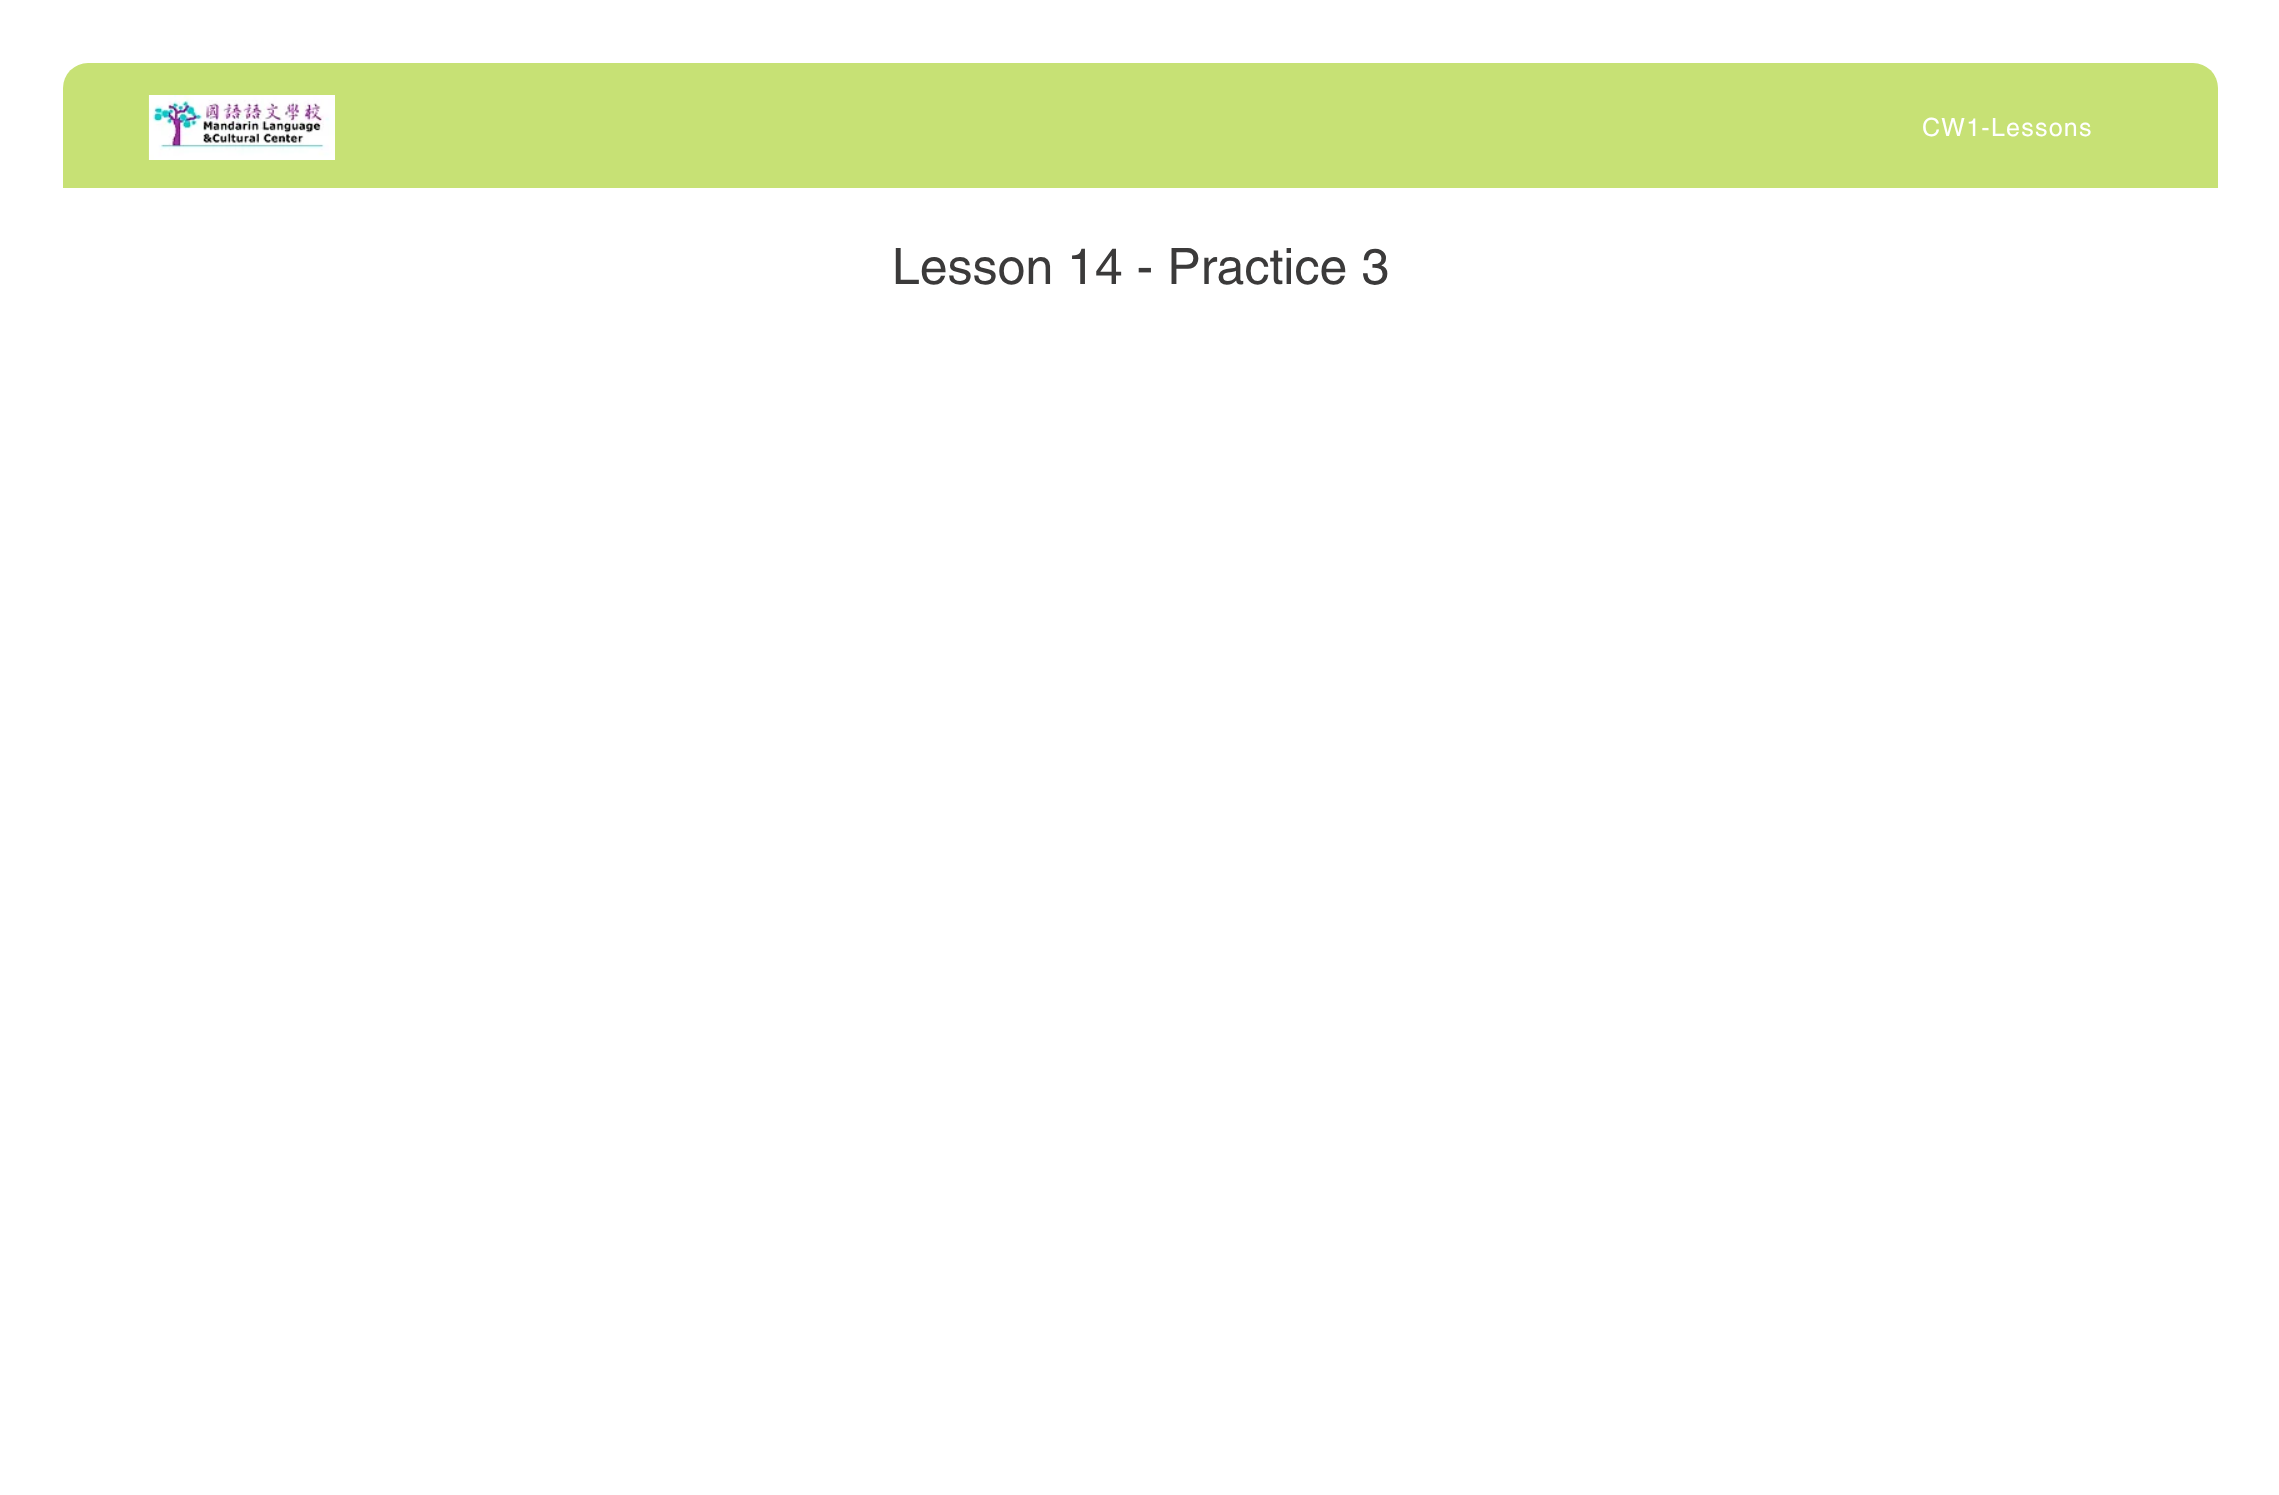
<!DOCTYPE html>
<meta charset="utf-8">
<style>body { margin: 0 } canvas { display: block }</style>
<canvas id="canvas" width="2279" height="1495"></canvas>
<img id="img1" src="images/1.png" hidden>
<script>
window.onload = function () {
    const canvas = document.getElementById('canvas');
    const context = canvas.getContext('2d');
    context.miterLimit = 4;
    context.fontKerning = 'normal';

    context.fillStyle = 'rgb(255, 255, 255)';
    context.fillRect(0, 0, 2279, 1495);
    context.fillStyle = 'rgb(199, 225, 117)';
    context.beginPath();
    context.roundRect(63, 63, 2155, 125, [25, 25, 0, 0]);
    context.fill();
    context.drawImage(document.getElementById('img1'), 148, 95, 187, 65);
    context.letterSpacing = '1.25px';
    context.font = '25px helvetica';
    context.fillStyle = 'rgb(255, 255, 255)';
    context.fillText('CW1-Lessons', 1922, 136);
    context.letterSpacing = '0px';
    context.font = '50px helvetica';
    context.fillStyle = 'rgb(59, 58, 58)';
    context.fillText('Lesson 14 - Practice 3', 892, 284);
};
</script>
